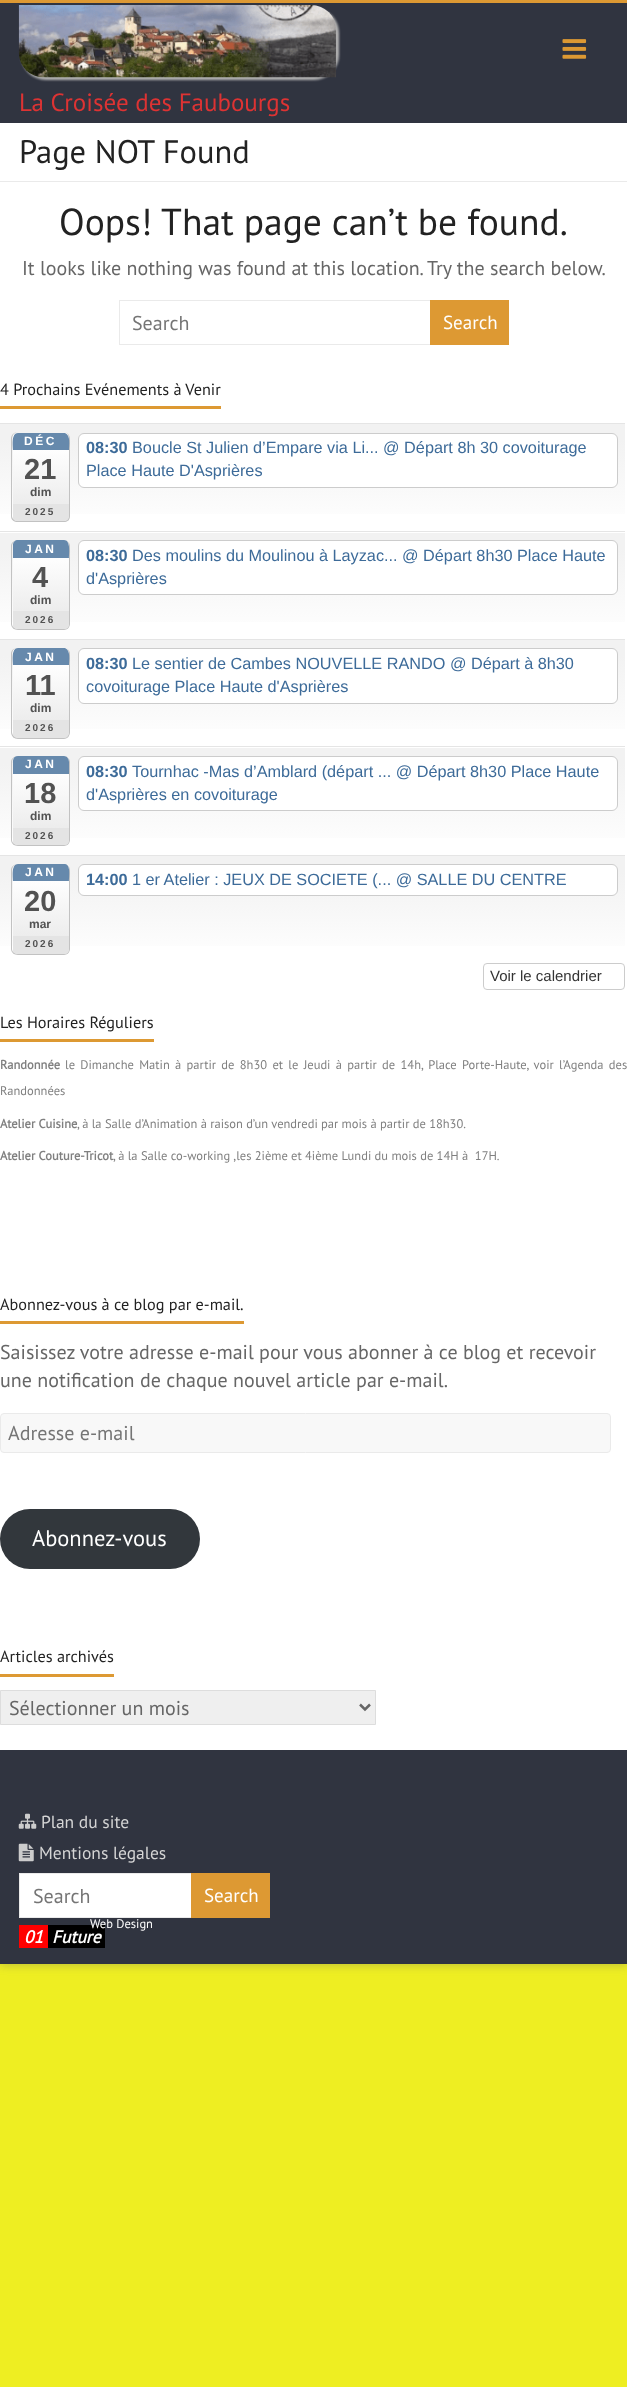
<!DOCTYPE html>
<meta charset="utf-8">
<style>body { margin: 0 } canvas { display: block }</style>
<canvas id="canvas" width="627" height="2387"></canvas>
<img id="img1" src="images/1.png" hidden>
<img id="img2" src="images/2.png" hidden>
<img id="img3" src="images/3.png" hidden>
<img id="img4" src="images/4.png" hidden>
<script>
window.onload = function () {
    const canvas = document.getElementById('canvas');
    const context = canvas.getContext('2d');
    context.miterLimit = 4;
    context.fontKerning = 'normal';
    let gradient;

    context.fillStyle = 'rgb(238, 238, 34)';
    context.fillRect(0, 0, 627, 2387);
    context.fillStyle = 'rgba(100, 100, 100, 0.3)';
    context.filter = 'blur(4px)';
    context.beginPath();
    context.rect(0, 3, 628, 1963);
    context.fill();
    context.filter = 'none';
    context.fillStyle = 'rgb(255, 255, 255)';
    context.fillRect(0, 123, 627, 1627);
    context.fillStyle = 'rgb(48, 52, 64)';
    context.fillRect(0, 3, 627, 120);
    context.fillStyle = 'rgb(221, 153, 51)';
    context.fillRect(0, 0, 627, 3);
    context.drawImage(document.getElementById('img1'), 562, 39, 25, 20);
    context.fillStyle = 'rgb(179, 179, 179)';
    context.filter = 'blur(1px)';
    context.beginPath();
    context.roundRect(21, 8, 318, 72, 25);
    context.fill();
    context.filter = 'none';
    context.drawImage(document.getElementById('img2'), 18, 5, 319, 73);
    context.fillStyle = 'rgb(234, 234, 234)';
    context.fillRect(0, 181, 627, 1);
    context.strokeStyle = 'rgb(234, 234, 234)';
    context.strokeRect(119.5, 300.5, 313, 44);
    context.fillStyle = 'rgb(221, 153, 51)';
    context.fillRect(430, 300, 79, 45);
    context.fillRect(0, 406, 221, 3);
    gradient = context.createLinearGradient(313, 424, 313, 531);
    gradient.addColorStop(0, 'rgb(242, 242, 242)');
    gradient.addColorStop(0.15, 'rgb(242, 242, 242)');
    gradient.addColorStop(1, 'rgb(255, 255, 255)');
    context.fillStyle = gradient;
    context.fillRect(0, 424, 625, 90);
    context.fillStyle = 'rgb(229, 229, 229)';
    context.fillRect(0, 423, 625, 1);
    context.save();
    context.beginPath();
    context.roundRect(11, 433, 59, 90, 6);
    context.clip();
    gradient = context.createLinearGradient(41, 433, 41, 521);
    gradient.addColorStop(0, 'rgb(255, 255, 255)');
    gradient.addColorStop(0.16, 'rgb(255, 255, 255)');
    gradient.addColorStop(1, 'rgb(231, 231, 231)');
    context.fillStyle = gradient;
    context.fillRect(13, 433, 56, 88);
    context.restore();
    context.fillStyle = 'rgb(194, 194, 194)';
    context.beginPath();
    context.moveTo(18, 432);
    context.lineTo(64, 432);
    context.bezierCurveTo(67, 432, 70, 435, 70, 439);
    context.lineTo(70, 516);
    context.bezierCurveTo(70, 520, 67, 522, 64, 522);
    context.lineTo(18, 522);
    context.bezierCurveTo(14, 522, 11, 520, 11, 516);
    context.lineTo(11, 439);
    context.bezierCurveTo(11, 435, 14, 432, 18, 432);
    context.closePath();
    context.moveTo(18, 432);
    context.lineTo(64, 432);
    context.bezierCurveTo(67, 432, 69, 435, 69, 439);
    context.lineTo(69, 516);
    context.bezierCurveTo(69, 519, 67, 521, 64, 521);
    context.lineTo(18, 521);
    context.bezierCurveTo(15, 521, 12, 519, 12, 516);
    context.lineTo(12, 439);
    context.bezierCurveTo(12, 435, 15, 432, 18, 432);
    context.closePath();
    context.fill('evenodd');
    context.fillStyle = 'rgb(102, 137, 172)';
    context.beginPath();
    context.moveTo(18, 433);
    context.lineTo(65, 433);
    context.bezierCurveTo(71, 435, 69, 446, 69, 450);
    context.lineTo(13, 450);
    context.bezierCurveTo(13, 446, 11, 433, 18, 433);
    context.closePath();
    context.fill();
    context.fillStyle = 'rgb(228, 228, 228)';
    context.beginPath();
    context.moveTo(13, 504);
    context.lineTo(69, 504);
    context.lineTo(69, 516);
    context.bezierCurveTo(69, 518, 67, 520, 65, 521);
    context.lineTo(16, 521);
    context.bezierCurveTo(15, 521, 14, 520, 13, 518);
    context.closePath();
    context.fill();
    context.fillStyle = 'rgb(255, 255, 255)';
    context.beginPath();
    context.roundRect(78.5, 433.5, 539, 54, 5.5);
    context.fill();
    context.strokeStyle = 'rgb(204, 204, 204)';
    context.stroke();
    gradient = context.createLinearGradient(313, 533, 313, 639);
    gradient.addColorStop(0, 'rgb(242, 242, 242)');
    gradient.addColorStop(0.15, 'rgb(242, 242, 242)');
    gradient.addColorStop(1, 'rgb(255, 255, 255)');
    context.fillStyle = gradient;
    context.fillRect(0, 533, 625, 89);
    context.fillStyle = 'rgb(229, 229, 229)';
    context.fillRect(0, 531, 625, 1);
    context.save();
    context.beginPath();
    context.roundRect(11, 540, 59, 90, 6);
    context.clip();
    gradient = context.createLinearGradient(41, 540, 41, 629);
    gradient.addColorStop(0, 'rgb(255, 255, 255)');
    gradient.addColorStop(0.16, 'rgb(255, 255, 255)');
    gradient.addColorStop(1, 'rgb(231, 231, 231)');
    context.fillStyle = gradient;
    context.fillRect(13, 540, 56, 89);
    context.restore();
    context.fillStyle = 'rgb(194, 194, 194)';
    context.beginPath();
    context.moveTo(18, 540);
    context.lineTo(64, 540);
    context.bezierCurveTo(67, 540, 70, 543, 70, 546);
    context.lineTo(70, 624);
    context.bezierCurveTo(70, 627, 67, 630, 64, 630);
    context.lineTo(18, 630);
    context.bezierCurveTo(14, 630, 11, 627, 11, 624);
    context.lineTo(11, 546);
    context.bezierCurveTo(11, 543, 14, 540, 18, 540);
    context.closePath();
    context.moveTo(18, 540);
    context.lineTo(64, 540);
    context.bezierCurveTo(67, 540, 69, 543, 69, 546);
    context.lineTo(69, 624);
    context.bezierCurveTo(69, 627, 67, 629, 64, 629);
    context.lineTo(18, 629);
    context.bezierCurveTo(15, 629, 12, 627, 12, 624);
    context.lineTo(12, 546);
    context.bezierCurveTo(12, 543, 15, 540, 18, 540);
    context.closePath();
    context.fill('evenodd');
    context.fillStyle = 'rgb(102, 137, 172)';
    context.beginPath();
    context.moveTo(18, 540);
    context.bezierCurveTo(15, 540, 13, 542, 13, 545);
    context.lineTo(13, 558);
    context.lineTo(69, 558);
    context.bezierCurveTo(69, 554, 71, 540, 64, 540);
    context.closePath();
    context.fill();
    context.fillStyle = 'rgb(228, 228, 228)';
    context.beginPath();
    context.moveTo(13, 611);
    context.lineTo(69, 611);
    context.lineTo(69, 624);
    context.bezierCurveTo(69, 627, 67, 629, 64, 629);
    context.lineTo(18, 629);
    context.bezierCurveTo(16, 629, 14, 628, 13, 626);
    context.closePath();
    context.fill();
    context.fillStyle = 'rgb(255, 255, 255)';
    context.beginPath();
    context.roundRect(78.5, 540.5, 539, 54, 5.5);
    context.fill();
    context.stroke();
    gradient = context.createLinearGradient(313, 640, 313, 746);
    gradient.addColorStop(0, 'rgb(242, 242, 242)');
    gradient.addColorStop(0.15, 'rgb(242, 242, 242)');
    gradient.addColorStop(1, 'rgb(255, 255, 255)');
    context.fillStyle = gradient;
    context.fillRect(0, 640, 625, 89);
    context.fillStyle = 'rgb(229, 229, 229)';
    context.fillRect(0, 639, 625, 1);
    context.save();
    context.beginPath();
    context.roundRect(11, 648, 59, 91, 6);
    context.clip();
    gradient = context.createLinearGradient(41, 648, 41, 738);
    gradient.addColorStop(0, 'rgb(255, 255, 255)');
    gradient.addColorStop(0.16, 'rgb(255, 255, 255)');
    gradient.addColorStop(1, 'rgb(231, 231, 231)');
    context.fillStyle = gradient;
    context.fillRect(13, 648, 56, 90);
    context.restore();
    context.fillStyle = 'rgb(194, 194, 194)';
    context.beginPath();
    context.moveTo(18, 648);
    context.lineTo(64, 648);
    context.bezierCurveTo(67, 648, 70, 650, 70, 654);
    context.lineTo(70, 732);
    context.bezierCurveTo(70, 736, 67, 739, 64, 739);
    context.lineTo(18, 739);
    context.bezierCurveTo(14, 739, 11, 736, 11, 732);
    context.lineTo(11, 654);
    context.bezierCurveTo(11, 650, 14, 648, 18, 648);
    context.closePath();
    context.moveTo(18, 648);
    context.lineTo(64, 648);
    context.bezierCurveTo(67, 648, 69, 650, 69, 654);
    context.lineTo(69, 732);
    context.bezierCurveTo(69, 735, 67, 738, 64, 738);
    context.lineTo(18, 738);
    context.bezierCurveTo(15, 738, 12, 735, 12, 732);
    context.lineTo(12, 654);
    context.bezierCurveTo(12, 650, 15, 648, 18, 648);
    context.closePath();
    context.fill('evenodd');
    context.fillStyle = 'rgb(102, 137, 172)';
    context.beginPath();
    context.moveTo(18, 648);
    context.lineTo(65, 648);
    context.bezierCurveTo(71, 650, 69, 661, 69, 665);
    context.lineTo(13, 665);
    context.bezierCurveTo(13, 661, 11, 648, 18, 648);
    context.closePath();
    context.fill();
    context.fillStyle = 'rgb(228, 228, 228)';
    context.beginPath();
    context.moveTo(13, 720);
    context.lineTo(69, 720);
    context.lineTo(69, 732);
    context.bezierCurveTo(69, 735, 67, 738, 64, 738);
    context.lineTo(18, 738);
    context.bezierCurveTo(16, 738, 14, 736, 13, 735);
    context.closePath();
    context.fill();
    context.fillStyle = 'rgb(255, 255, 255)';
    context.beginPath();
    context.roundRect(78.5, 648.5, 539, 55, 5.5);
    context.fill();
    context.stroke();
    gradient = context.createLinearGradient(313, 748, 313, 855);
    gradient.addColorStop(0, 'rgb(242, 242, 242)');
    gradient.addColorStop(0.15, 'rgb(242, 242, 242)');
    gradient.addColorStop(1, 'rgb(255, 255, 255)');
    context.fillStyle = gradient;
    context.fillRect(0, 748, 625, 90);
    context.fillStyle = 'rgb(229, 229, 229)';
    context.fillRect(0, 746, 625, 1);
    context.save();
    context.beginPath();
    context.roundRect(11, 756, 59, 90, 6);
    context.clip();
    gradient = context.createLinearGradient(41, 756, 41, 845);
    gradient.addColorStop(0, 'rgb(255, 255, 255)');
    gradient.addColorStop(0.16, 'rgb(255, 255, 255)');
    gradient.addColorStop(1, 'rgb(231, 231, 231)');
    context.fillStyle = gradient;
    context.fillRect(13, 756, 56, 89);
    context.restore();
    context.fillStyle = 'rgb(194, 194, 194)';
    context.beginPath();
    context.moveTo(18, 756);
    context.lineTo(64, 756);
    context.bezierCurveTo(67, 756, 70, 759, 70, 762);
    context.lineTo(70, 840);
    context.bezierCurveTo(70, 843, 67, 846, 64, 846);
    context.lineTo(18, 846);
    context.bezierCurveTo(14, 846, 11, 843, 11, 840);
    context.lineTo(11, 762);
    context.bezierCurveTo(11, 759, 14, 756, 18, 756);
    context.closePath();
    context.moveTo(18, 756);
    context.lineTo(64, 756);
    context.bezierCurveTo(67, 756, 69, 759, 69, 762);
    context.lineTo(69, 840);
    context.bezierCurveTo(69, 843, 67, 845, 64, 845);
    context.lineTo(18, 845);
    context.bezierCurveTo(15, 845, 12, 843, 12, 840);
    context.lineTo(12, 762);
    context.bezierCurveTo(12, 759, 15, 756, 18, 756);
    context.closePath();
    context.fill('evenodd');
    context.fillStyle = 'rgb(102, 137, 172)';
    context.beginPath();
    context.moveTo(18, 756);
    context.lineTo(64, 756);
    context.bezierCurveTo(67, 756, 69, 759, 69, 762);
    context.lineTo(69, 774);
    context.lineTo(13, 774);
    context.lineTo(13, 765);
    context.bezierCurveTo(13, 762, 12, 756, 18, 756);
    context.closePath();
    context.fill();
    context.fillStyle = 'rgb(228, 228, 228)';
    context.beginPath();
    context.moveTo(13, 828);
    context.lineTo(13, 842);
    context.bezierCurveTo(14, 844, 16, 845, 18, 845);
    context.lineTo(64, 845);
    context.bezierCurveTo(67, 845, 69, 843, 69, 840);
    context.lineTo(69, 828);
    context.closePath();
    context.fill();
    context.fillStyle = 'rgb(255, 255, 255)';
    context.beginPath();
    context.roundRect(78.5, 756.5, 539, 54, 5.5);
    context.fill();
    context.stroke();
    gradient = context.createLinearGradient(313, 856, 313, 963);
    gradient.addColorStop(0, 'rgb(242, 242, 242)');
    gradient.addColorStop(0.15, 'rgb(242, 242, 242)');
    gradient.addColorStop(1, 'rgb(255, 255, 255)');
    context.fillStyle = gradient;
    context.fillRect(0, 856, 625, 90);
    context.fillStyle = 'rgb(229, 229, 229)';
    context.fillRect(0, 855, 625, 1);
    context.save();
    context.beginPath();
    context.roundRect(11, 864, 59, 91, 6);
    context.clip();
    gradient = context.createLinearGradient(41, 864, 41, 954);
    gradient.addColorStop(0, 'rgb(255, 255, 255)');
    gradient.addColorStop(0.16, 'rgb(255, 255, 255)');
    gradient.addColorStop(1, 'rgb(231, 231, 231)');
    context.fillStyle = gradient;
    context.fillRect(13, 864, 56, 90);
    context.restore();
    context.fillStyle = 'rgb(194, 194, 194)';
    context.beginPath();
    context.moveTo(18, 864);
    context.lineTo(64, 864);
    context.bezierCurveTo(67, 864, 70, 867, 70, 870);
    context.lineTo(70, 949);
    context.bezierCurveTo(70, 952, 67, 955, 64, 955);
    context.lineTo(18, 955);
    context.bezierCurveTo(14, 955, 11, 952, 11, 949);
    context.lineTo(11, 870);
    context.bezierCurveTo(11, 867, 14, 864, 18, 864);
    context.closePath();
    context.moveTo(18, 864);
    context.lineTo(64, 864);
    context.bezierCurveTo(67, 864, 69, 867, 69, 870);
    context.lineTo(69, 949);
    context.bezierCurveTo(69, 952, 67, 954, 64, 954);
    context.lineTo(18, 954);
    context.bezierCurveTo(15, 954, 12, 952, 12, 949);
    context.lineTo(12, 870);
    context.bezierCurveTo(12, 867, 15, 864, 18, 864);
    context.closePath();
    context.fill('evenodd');
    context.fillStyle = 'rgb(102, 137, 172)';
    context.beginPath();
    context.moveTo(18, 864);
    context.lineTo(65, 864);
    context.bezierCurveTo(71, 865, 69, 877, 69, 881);
    context.lineTo(13, 881);
    context.bezierCurveTo(13, 877, 11, 864, 18, 864);
    context.closePath();
    context.fill();
    context.fillStyle = 'rgb(228, 228, 228)';
    context.beginPath();
    context.moveTo(13, 936);
    context.lineTo(69, 936);
    context.lineTo(69, 949);
    context.bezierCurveTo(69, 952, 67, 954, 64, 954);
    context.lineTo(18, 954);
    context.bezierCurveTo(16, 954, 14, 953, 13, 951);
    context.closePath();
    context.fill();
    context.fillStyle = 'rgb(255, 255, 255)';
    context.beginPath();
    context.roundRect(78.5, 864.5, 539, 31, 5.5);
    context.fill();
    context.stroke();
    context.beginPath();
    context.roundRect(483.5, 963.5, 141, 26, 3.5);
    context.stroke();
    context.fillStyle = 'rgb(221, 153, 51)';
    context.fillRect(0, 1039, 154, 3);
    context.fillRect(0, 1321, 244, 3);
    context.fillStyle = 'rgb(248, 248, 248)';
    context.beginPath();
    context.roundRect(0.5, 1413.5, 610, 39, 3.5);
    context.fill();
    context.strokeStyle = 'rgb(234, 234, 234)';
    context.stroke();
    context.fillStyle = 'rgb(50, 55, 60)';
    context.beginPath();
    context.roundRect(0, 1509, 200, 60, 30);
    context.fill();
    context.fillStyle = 'rgb(221, 153, 51)';
    context.fillRect(0, 1674, 114, 3);
    context.fillStyle = 'rgb(239, 239, 239)';
    context.beginPath();
    context.rect(0.5, 1690.5, 375, 34);
    context.fill();
    context.strokeStyle = 'rgb(221, 221, 221)';
    context.stroke();
    context.beginPath();
    context.moveTo(360, 1704.5);
    context.lineTo(365, 1709.5);
    context.lineTo(370, 1704.5);
    context.strokeStyle = 'rgb(102, 102, 102)';
    context.lineWidth = 2.5;
    context.stroke();
    context.fillStyle = 'rgb(48, 52, 64)';
    context.fillRect(0, 1750, 627, 214);
    context.drawImage(document.getElementById('img3'), 18, 1813, 19, 16);
    context.drawImage(document.getElementById('img4'), 18, 1843, 16, 19);
    context.fillStyle = 'rgb(255, 255, 255)';
    context.fillRect(20, 1874, 171, 43);
    context.strokeStyle = 'rgb(234, 234, 234)';
    context.lineWidth = 1;
    context.strokeRect(19.5, 1873.5, 174, 44);
    context.fillStyle = 'rgb(221, 153, 51)';
    context.fillRect(191, 1873, 79, 45);
    context.fillStyle = 'rgb(255, 0, 0)';
    context.fillRect(19, 1925, 29, 23);
    context.fillStyle = 'rgb(0, 0, 0)';
    context.fillRect(48, 1925, 57, 23);
    context.font = '25px PT Sans';
    context.fillStyle = 'rgb(221, 51, 51)';
    context.fillText('La Croisée des Faubourgs', 19, 111);
    context.font = '32.5px PT Sans';
    context.fillStyle = 'rgb(34, 34, 34)';
    context.fillText('Page NOT Found', 19, 163);
    context.font = '37.5px PT Sans';
    context.fillText('Oops! That page can’t be found.', 59, 235);
    context.font = '20px PT Sans';
    context.fillStyle = 'rgb(102, 102, 102)';
    context.fillText('It looks like nothing was found at this location. Try the search below.', 22, 275);
    context.fillStyle = 'rgb(117, 117, 117)';
    context.fillText('Search', 132, 330);
    context.font = '19px PT Sans';
    context.fillStyle = 'rgb(255, 255, 255)';
    context.fillText('Search', 443, 329);
    context.font = '16.25px PT Sans';
    context.fillStyle = 'rgb(34, 34, 34)';
    context.fillText('4 Prochains Evénements à Venir', 0, 395);
    context.letterSpacing = '2.5px';
    context.font = 'bold 12px Liberation Sans';
    context.fillStyle = 'rgb(255, 255, 255)';
    context.fillText('DÉC', 24, 445);
    context.letterSpacing = '0px';
    context.font = 'bold 29px Liberation Sans';
    context.fillStyle = 'rgb(82, 82, 82)';
    context.fillText('21', 24, 479);
    context.font = 'bold 12px Liberation Sans';
    context.fillText('dim', 30, 496);
    context.letterSpacing = '2px';
    context.font = 'bold 10px Liberation Sans';
    context.fillText('2025', 25, 515);
    context.letterSpacing = '0px';
    context.font = 'bold 16.25px Liberation Sans';
    context.fillStyle = 'rgb(61, 107, 153)';
    context.fillText('08:30', 86, 453);
    context.font = '16.25px Liberation Sans';
    context.fillText('Boucle St Julien d’Empare via Li... @ Départ 8h 30 covoiturage', 132, 453);
    context.fillText('Place Haute D\'Asprières', 86, 476);
    context.letterSpacing = '2.5px';
    context.font = 'bold 12px Liberation Sans';
    context.fillStyle = 'rgb(255, 255, 255)';
    context.fillText('JAN', 25, 553);
    context.letterSpacing = '0px';
    context.font = 'bold 29px Liberation Sans';
    context.fillStyle = 'rgb(82, 82, 82)';
    context.fillText('4', 32, 587);
    context.font = 'bold 12px Liberation Sans';
    context.fillText('dim', 30, 604);
    context.letterSpacing = '2px';
    context.font = 'bold 10px Liberation Sans';
    context.fillText('2026', 25, 623);
    context.letterSpacing = '0px';
    context.font = 'bold 16.25px Liberation Sans';
    context.fillStyle = 'rgb(61, 107, 153)';
    context.fillText('08:30', 86, 561);
    context.font = '16.25px Liberation Sans';
    context.fillText('Des moulins du Moulinou à Layzac... @ Départ 8h30 Place Haute', 132, 561);
    context.fillText('d\'Asprières', 86, 584);
    context.letterSpacing = '2.5px';
    context.font = 'bold 12px Liberation Sans';
    context.fillStyle = 'rgb(255, 255, 255)';
    context.fillText('JAN', 25, 661);
    context.letterSpacing = '0px';
    context.font = 'bold 29px Liberation Sans';
    context.fillStyle = 'rgb(82, 82, 82)';
    context.fillText('11', 25, 695);
    context.font = 'bold 12px Liberation Sans';
    context.fillText('dim', 30, 712);
    context.letterSpacing = '2px';
    context.font = 'bold 10px Liberation Sans';
    context.fillText('2026', 25, 731);
    context.letterSpacing = '0px';
    context.font = 'bold 16.25px Liberation Sans';
    context.fillStyle = 'rgb(61, 107, 153)';
    context.fillText('08:30', 86, 669);
    context.font = '16.25px Liberation Sans';
    context.fillText('Le sentier de Cambes NOUVELLE RANDO @ Départ à 8h30', 132, 669);
    context.fillText('covoiturage Place Haute d\'Asprières', 86, 692);
    context.letterSpacing = '2.5px';
    context.font = 'bold 12px Liberation Sans';
    context.fillStyle = 'rgb(255, 255, 255)';
    context.fillText('JAN', 25, 768);
    context.letterSpacing = '0px';
    context.font = 'bold 29px Liberation Sans';
    context.fillStyle = 'rgb(82, 82, 82)';
    context.fillText('18', 24, 803);
    context.font = 'bold 12px Liberation Sans';
    context.fillText('dim', 30, 820);
    context.letterSpacing = '2px';
    context.font = 'bold 10px Liberation Sans';
    context.fillText('2026', 25, 839);
    context.letterSpacing = '0px';
    context.font = 'bold 16.25px Liberation Sans';
    context.fillStyle = 'rgb(61, 107, 153)';
    context.fillText('08:30', 86, 777);
    context.font = '16.25px Liberation Sans';
    context.fillText('Tournhac -Mas d’Amblard (départ ... @ Départ 8h30 Place Haute', 132, 777);
    context.fillText('d\'Asprières en covoiturage', 86, 800);
    context.letterSpacing = '2.5px';
    context.font = 'bold 12px Liberation Sans';
    context.fillStyle = 'rgb(255, 255, 255)';
    context.fillText('JAN', 25, 876);
    context.letterSpacing = '0px';
    context.font = 'bold 29px Liberation Sans';
    context.fillStyle = 'rgb(82, 82, 82)';
    context.fillText('20', 24, 911);
    context.font = 'bold 12px Liberation Sans';
    context.fillText('mar', 29, 928);
    context.letterSpacing = '2px';
    context.font = 'bold 10px Liberation Sans';
    context.fillText('2026', 25, 947);
    context.letterSpacing = '0px';
    context.font = 'bold 16.25px Liberation Sans';
    context.fillStyle = 'rgb(61, 107, 153)';
    context.fillText('14:00', 86, 885);
    context.font = '16.25px Liberation Sans';
    context.fillText('1 er Atelier : JEUX DE SOCIETE (... @ SALLE DU CENTRE', 132, 885);
    context.font = '15px Liberation Sans';
    context.fillStyle = 'rgb(51, 51, 51)';
    context.fillText('Voir le calendrier', 490, 981);
    context.font = '16.25px PT Sans';
    context.fillStyle = 'rgb(34, 34, 34)';
    context.fillText('Les Horaires Réguliers', 0, 1028);
    context.font = 'bold 12.5px PT Sans';
    context.fillStyle = 'rgb(128, 128, 128)';
    context.fillText('Randonnée', 0, 1069);
    context.wordSpacing = '2px';
    context.font = '12.5px PT Sans';
    context.fillText('le Dimanche Matin à partir de 8h30 et le Jeudi à partir de 14h, Place Porte-Haute, voir', 65, 1069);
    context.fillText('l’Agenda des', 559, 1069);
    context.wordSpacing = '0px';
    context.fillText('Randonnées', 0, 1095);
    context.font = 'bold 12.5px PT Sans';
    context.fillText('Atelier Cuisine', 0, 1128);
    context.font = '12.5px PT Sans';
    context.fillText(', à la Salle d’Animation à raison d’un vendredi par mois à partir de 18h30.', 77, 1128);
    context.font = 'bold 12.5px PT Sans';
    context.fillText('Atelier Couture-Tricot', 0, 1160);
    context.font = '12.5px PT Sans';
    context.fillText(', à la Salle co-working ,les 2ième et 4ième Lundi du mois de 14H à  17H.', 113, 1160);
    context.font = '16.25px PT Sans';
    context.fillStyle = 'rgb(34, 34, 34)';
    context.fillText('Abonnez-vous à ce blog par e-mail.', 0, 1310);
    context.font = '20px PT Sans';
    context.fillStyle = 'rgb(102, 102, 102)';
    context.fillText('Saisissez votre adresse e-mail pour vous abonner à ce blog et recevoir', 0, 1359);
    context.fillText('une notification de chaque nouvel article par e-mail.', 0, 1387);
    context.fillStyle = 'rgb(117, 117, 117)';
    context.fillText('Adresse e-mail', 8, 1440);
    context.font = '22.5px PT Sans';
    context.fillStyle = 'rgb(255, 255, 255)';
    context.fillText('Abonnez-vous', 32, 1546);
    context.font = '16.25px PT Sans';
    context.fillStyle = 'rgb(34, 34, 34)';
    context.fillText('Articles archivés', 0, 1662);
    context.font = '20px PT Sans';
    context.fillStyle = 'rgb(102, 102, 102)';
    context.fillText('Sélectionner un mois', 9, 1715);
    context.font = '17.5px PT Sans';
    context.fillStyle = 'rgb(213, 213, 213)';
    context.fillText('Plan du site', 41, 1828);
    context.fillText('Mentions légales', 39, 1859);
    context.font = '20px PT Sans';
    context.fillStyle = 'rgb(117, 117, 117)';
    context.fillText('Search', 33, 1903);
    context.font = '19px PT Sans';
    context.fillStyle = 'rgb(255, 255, 255)';
    context.fillText('Search', 204, 1902);
    context.font = '12.5px PT Sans';
    context.fillText('Web Design', 90, 1928);
    context.font = 'italic bold 17.5px PT Sans';
    context.fillText('01', 24, 1943);
    context.fillText('Future', 52, 1943);
};
</script>
